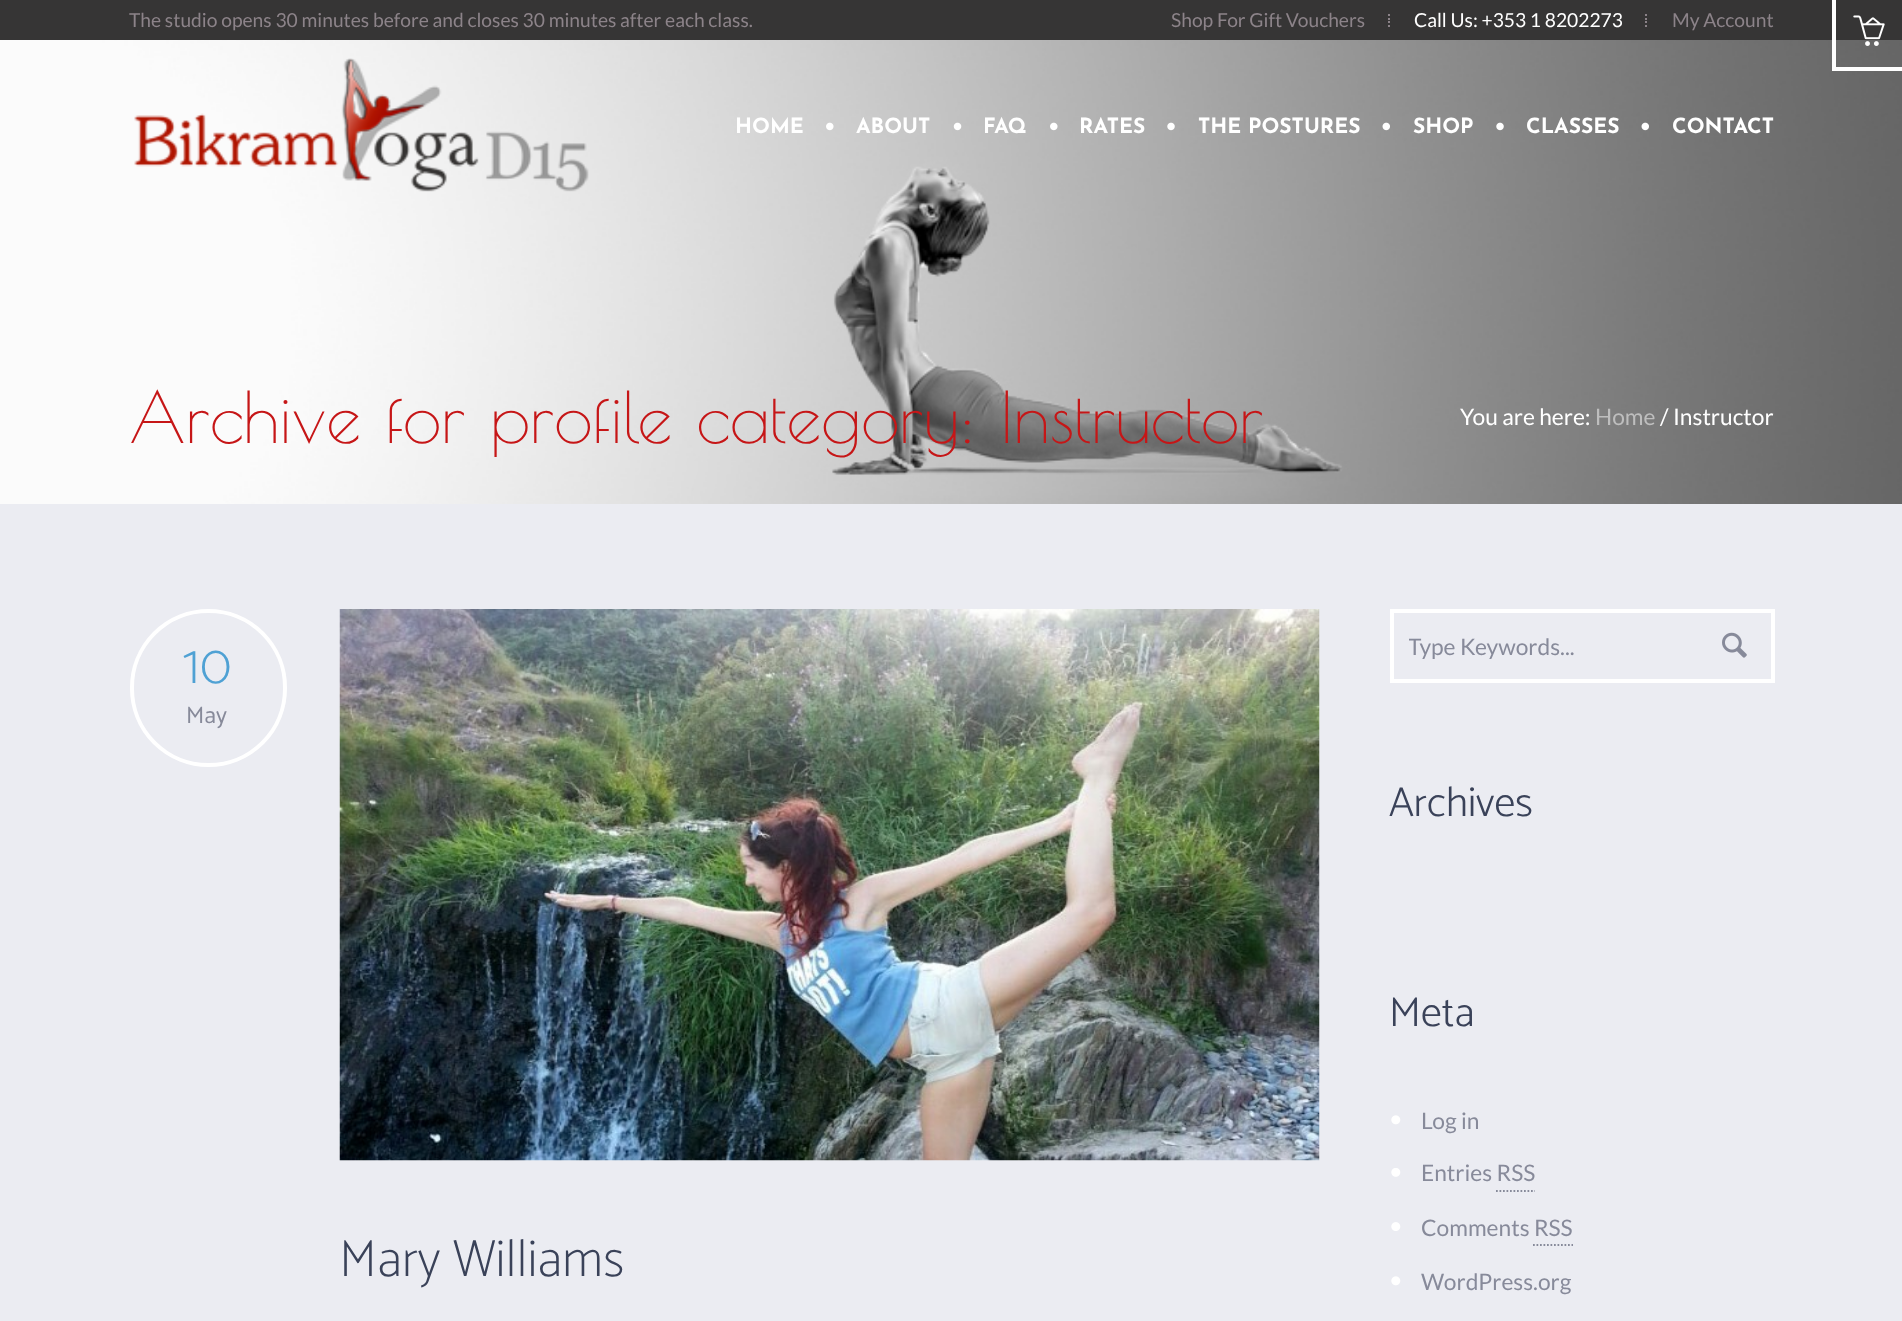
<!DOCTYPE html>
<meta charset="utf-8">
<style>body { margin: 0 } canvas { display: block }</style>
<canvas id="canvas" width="1902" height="1321"></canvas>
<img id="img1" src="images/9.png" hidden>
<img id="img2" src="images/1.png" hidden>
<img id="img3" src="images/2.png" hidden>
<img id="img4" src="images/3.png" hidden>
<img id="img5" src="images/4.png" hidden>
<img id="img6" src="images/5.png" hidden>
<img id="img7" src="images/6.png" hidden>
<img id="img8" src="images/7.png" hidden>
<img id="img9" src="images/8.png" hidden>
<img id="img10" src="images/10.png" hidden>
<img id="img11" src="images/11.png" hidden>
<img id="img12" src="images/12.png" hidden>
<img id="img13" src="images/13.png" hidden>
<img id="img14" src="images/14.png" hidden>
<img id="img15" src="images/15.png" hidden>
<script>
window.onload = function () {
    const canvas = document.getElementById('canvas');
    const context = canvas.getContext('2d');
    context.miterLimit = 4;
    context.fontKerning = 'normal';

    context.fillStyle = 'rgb(255, 255, 255)';
    context.fillRect(0, 0, 1902, 1321);
    context.fillStyle = 'rgb(54, 53, 53)';
    context.fillRect(0, 0, 1902, 40);
    context.fillStyle = 'rgb(140, 131, 137)';
    context.fillRect(1388, 14, 2, 2);
    context.fillRect(1388, 25, 2, 2);
    context.fillRect(1388, 18, 2, 2);
    context.fillRect(1388, 21, 2, 2);
    context.fillRect(1645, 14, 2, 2);
    context.fillRect(1645, 25, 2, 2);
    context.fillRect(1645, 18, 2, 2);
    context.fillRect(1645, 21, 2, 2);
    context.drawImage(document.getElementById('img1'), 0, 40, 1902, 464);
    context.drawImage(document.getElementById('img2'), 134, 58, 455, 134);
    context.drawImage(document.getElementById('img3'), 826, 122, 8, 9);
    context.drawImage(document.getElementById('img4'), 953, 122, 9, 9);
    context.drawImage(document.getElementById('img5'), 1050, 122, 8, 9);
    context.drawImage(document.getElementById('img6'), 1167, 122, 8, 9);
    context.drawImage(document.getElementById('img7'), 1382, 122, 8, 9);
    context.drawImage(document.getElementById('img8'), 1496, 122, 8, 9);
    context.drawImage(document.getElementById('img9'), 1641, 122, 8, 9);
    context.fillStyle = 'rgb(235, 236, 242)';
    context.fillRect(0, 504, 1902, 817);
    context.beginPath();
    context.roundRect(132, 611, 153, 154, 76.5);
    context.strokeStyle = 'rgb(255, 255, 255)';
    context.lineWidth = 4;
    context.stroke();
    context.drawImage(document.getElementById('img10'), 339, 609, 981, 552);
    context.strokeRect(1392, 611, 381, 70);
    context.drawImage(document.getElementById('img11'), 1722, 632, 25, 26);
    context.drawImage(document.getElementById('img12'), 1391, 1115, 10, 10);
    context.drawImage(document.getElementById('img13'), 1391, 1168, 10, 9);
    context.beginPath();
    context.moveTo(1496, 1191);
    context.lineTo(1535, 1191);
    context.strokeStyle = 'rgb(135, 138, 154)';
    context.lineWidth = 1.8;
    context.setLineDash([1.75, 1.75]);
    context.stroke();
    context.drawImage(document.getElementById('img14'), 1391, 1222, 10, 9);
    context.beginPath();
    context.moveTo(1533, 1245);
    context.lineTo(1573, 1245);
    context.stroke();
    context.drawImage(document.getElementById('img12'), 1391, 1276, 10, 10);
    context.fillStyle = 'rgb(255, 255, 255)';
    context.fillRect(1832, 67, 70, 4);
    context.fillRect(1832, 0, 4, 70);
    context.drawImage(document.getElementById('img15'), 1853, 15, 32, 31);
    context.font = '19.25px Lato';
    context.fillStyle = 'rgb(140, 131, 137)';
    context.fillText('The studio opens 30 minutes before and closes 30 minutes after each class.', 129, 27);
    context.fillText('Shop For Gift Vouchers', 1171, 27);
    context.fillStyle = 'rgb(255, 255, 255)';
    context.fillText('Call Us: +353 1 8202273', 1414, 27);
    context.fillStyle = 'rgb(140, 131, 137)';
    context.fillText('My Account', 1672, 27);
    context.font = 'bold 21px Josefin Sans';
    context.fillStyle = 'rgb(255, 255, 255)';
    context.fillText('HOME', 735, 133);
    context.fillText('ABOUT', 856, 133);
    context.fillText('FAQ', 983, 133);
    context.fillText('RATES', 1079, 133);
    context.fillText('THE POSTURES', 1198, 133);
    context.fillText('SHOP', 1413, 133);
    context.fillText('CLASSES', 1526, 133);
    context.fillText('CONTACT', 1672, 133);
    context.font = '70px Poiret One';
    context.fillStyle = 'rgb(198, 22, 23)';
    context.fillText('Archive for profile category: Instructor', 129, 443);
    context.font = '22.75px Lato';
    context.fillStyle = 'rgb(255, 255, 255)';
    context.fillText('You are here:', 1460, 425);
    context.fillStyle = 'rgb(190, 190, 190)';
    context.fillText('Home', 1595, 425);
    context.fillStyle = 'rgb(255, 255, 255)';
    context.fillText('/ Instructor', 1660, 425);
    context.font = '100 56px Catamaran';
    context.fillStyle = 'rgb(79, 161, 212)';
    context.fillText('10', 183, 683);
    context.font = '24px Catamaran';
    context.fillStyle = 'rgb(135, 138, 154)';
    context.fillText('May', 186, 723);
    context.font = '100 52.5px Catamaran';
    context.fillStyle = 'rgb(58, 66, 89)';
    context.fillText('Mary Williams', 339, 1276);
    context.save();
    context.beginPath();
    context.rect(1409, 632, 269, 28);
    context.clip();
    context.font = '22.75px Lato';
    context.fillStyle = 'rgb(135, 138, 154)';
    context.fillText('Type Keywords...', 1408, 655);
    context.restore();
    context.font = '300 42px Catamaran';
    context.fillText('Archives', 1389, 816);
    context.fillText('Meta', 1389, 1026);
    context.font = '22.75px Lato';
    context.fillStyle = 'rgb(135, 138, 154)';
    context.fillText('Log in', 1421, 1129);
    context.fillText('Entries RSS', 1421, 1181);
    context.fillText('Comments RSS', 1421, 1236);
    context.fillText('WordPress.org', 1421, 1290);
};
</script>
